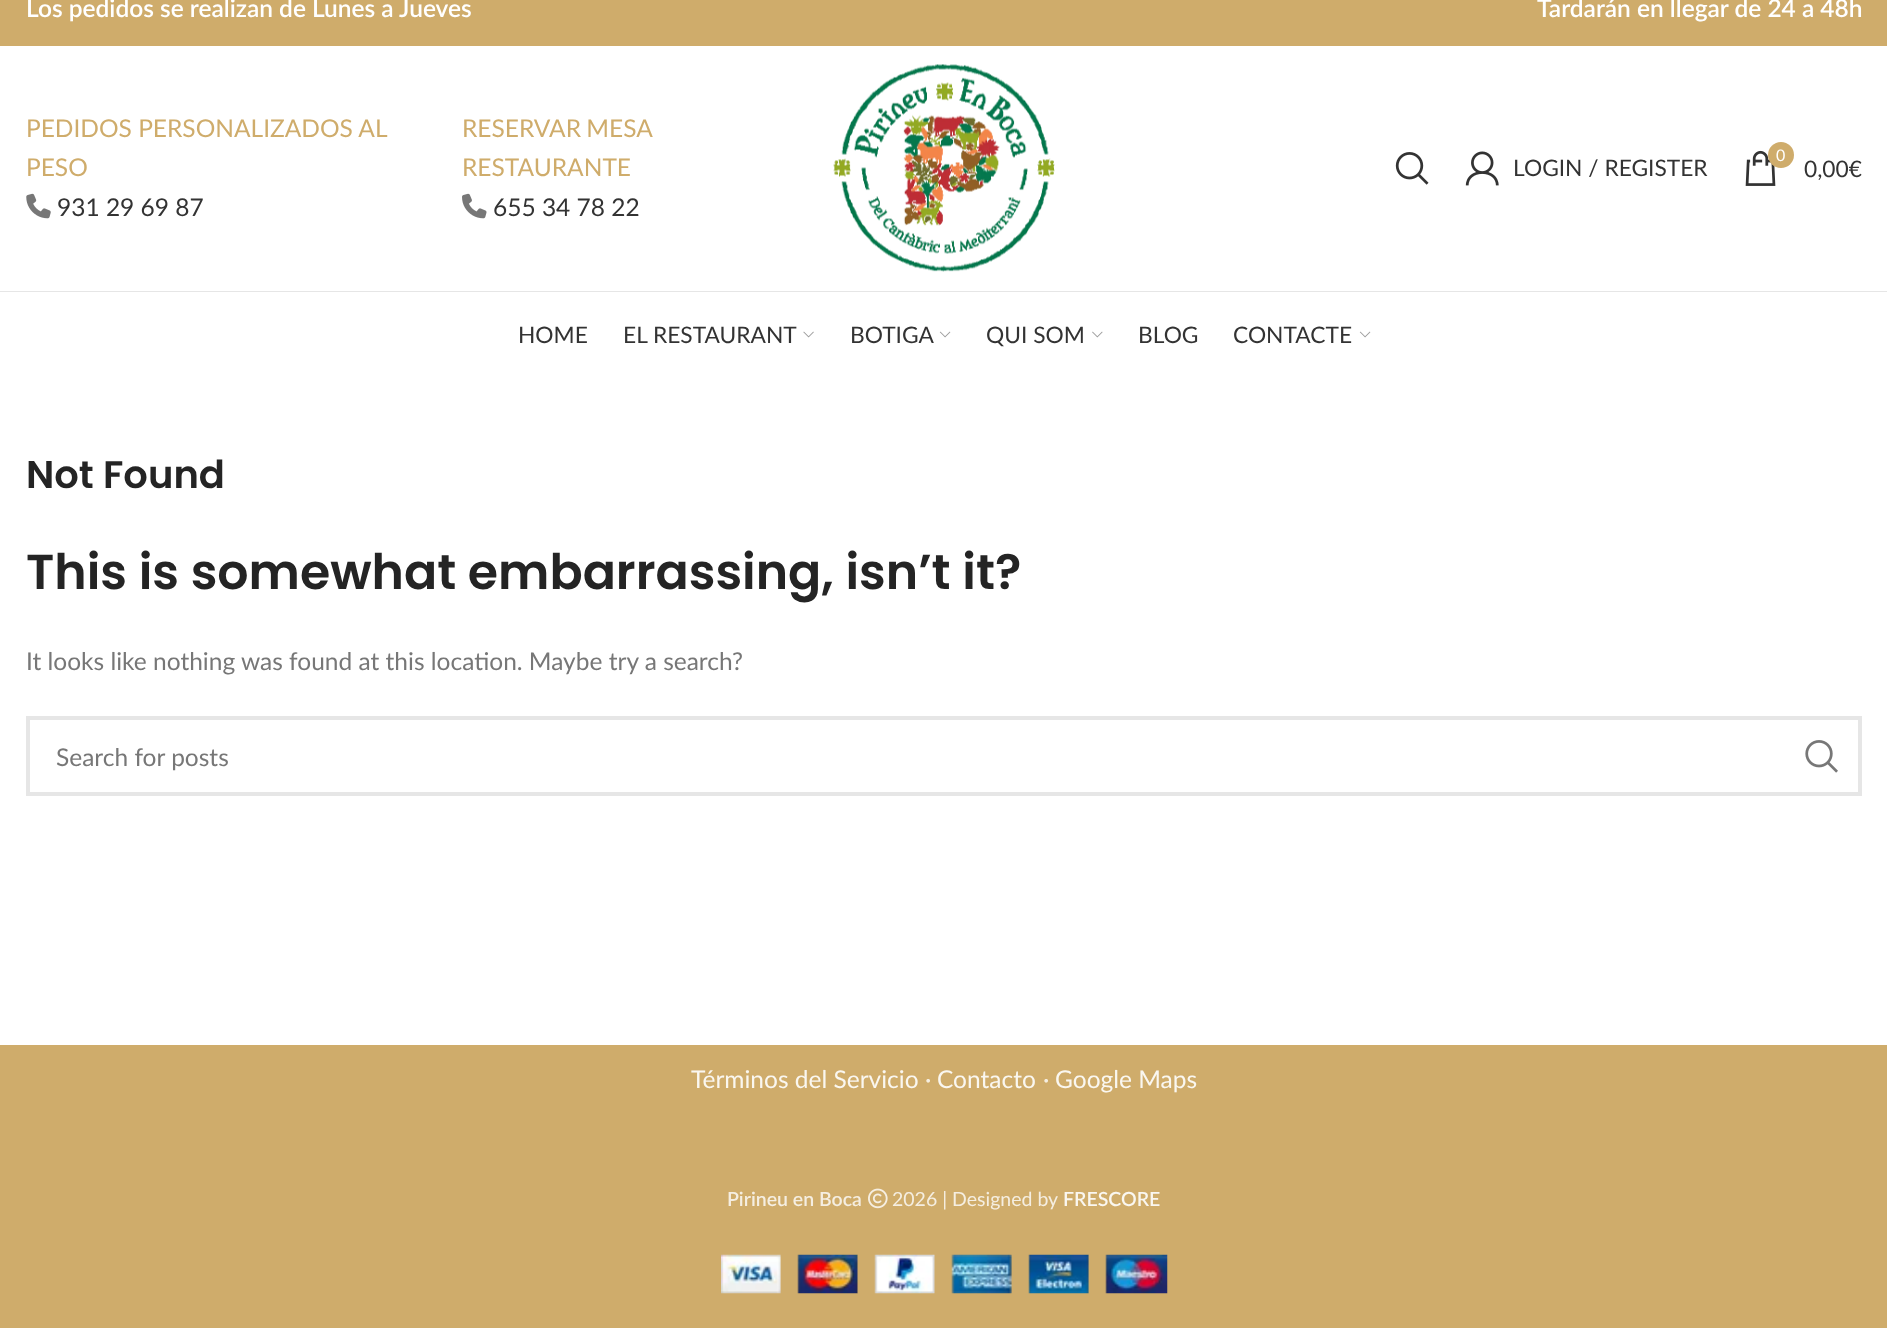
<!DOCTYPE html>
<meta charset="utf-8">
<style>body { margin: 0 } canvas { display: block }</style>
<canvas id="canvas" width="1887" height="1328"></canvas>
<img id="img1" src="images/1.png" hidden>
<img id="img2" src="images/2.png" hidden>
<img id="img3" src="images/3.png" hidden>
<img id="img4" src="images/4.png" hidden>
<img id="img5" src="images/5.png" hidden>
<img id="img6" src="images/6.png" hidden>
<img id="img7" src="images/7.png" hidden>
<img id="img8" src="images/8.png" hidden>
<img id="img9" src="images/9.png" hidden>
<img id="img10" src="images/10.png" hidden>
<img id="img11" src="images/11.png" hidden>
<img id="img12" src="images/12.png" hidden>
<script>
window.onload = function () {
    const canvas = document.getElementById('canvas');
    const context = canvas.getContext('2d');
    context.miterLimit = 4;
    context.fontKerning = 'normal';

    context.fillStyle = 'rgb(255, 255, 255)';
    context.fillRect(0, 0, 1887, 1328);
    context.fillStyle = 'rgb(207, 172, 107)';
    context.fillRect(0, 0, 1887, 46);
    context.fillStyle = 'rgb(230, 230, 230)';
    context.fillRect(0, 291, 1887, 1);
    context.drawImage(document.getElementById('img1'), 26, 193, 25, 26);
    context.drawImage(document.getElementById('img2'), 462, 193, 25, 26);
    context.drawImage(document.getElementById('img3'), 833, 64, 222, 208);
    context.drawImage(document.getElementById('img4'), 1395, 152, 34, 33);
    context.drawImage(document.getElementById('img5'), 1465, 151, 34, 35);
    context.drawImage(document.getElementById('img6'), 1745, 150, 31, 36);
    context.fillStyle = 'rgb(207, 172, 107)';
    context.beginPath();
    context.arc(1781, 155, 13, 0, 2 * Math.PI);
    context.fill();
    context.drawImage(document.getElementById('img7'), 803, 331, 11, 7);
    context.drawImage(document.getElementById('img8'), 939, 331, 12, 7);
    context.drawImage(document.getElementById('img9'), 1092, 331, 11, 7);
    context.drawImage(document.getElementById('img8'), 1359, 331, 12, 7);
    context.strokeStyle = 'rgb(230, 230, 230)';
    context.lineWidth = 4;
    context.strokeRect(28, 718, 1832, 76);
    context.drawImage(document.getElementById('img10'), 1805, 740, 33, 33);
    context.fillRect(0, 1045, 1887, 283);
    context.drawImage(document.getElementById('img11'), 868, 1188, 20, 21);
    context.drawImage(document.getElementById('img12'), 721, 1254, 447, 40);
    context.font = '600 24.5px Lato';
    context.fillStyle = 'rgb(255, 255, 255)';
    context.fillText('Los pedidos se realizan de Lunes a Jueves', 26, 17);
    context.fillText('Tardarán en llegar de 24 a 48h', 1537, 17);
    context.font = '24.5px Lato';
    context.fillStyle = 'rgb(207, 172, 107)';
    context.fillText('PEDIDOS PERSONALIZADOS AL', 26, 137);
    context.fillText('PESO', 26, 176);
    context.fillStyle = 'rgb(51, 51, 51)';
    context.fillText('931 29 69 87', 57, 216);
    context.wordSpacing = '-1px';
    context.fillStyle = 'rgb(207, 172, 107)';
    context.fillText('RESERVAR MESA', 462, 137);
    context.wordSpacing = '0px';
    context.fillText('RESTAURANTE', 462, 176);
    context.fillStyle = 'rgb(51, 51, 51)';
    context.fillText('655 34 78 22', 493, 216);
    context.font = '22.75px Lato';
    context.fillText('LOGIN / REGISTER', 1513, 176);
    context.font = '16px Lato';
    context.fillStyle = 'rgb(255, 255, 255)';
    context.fillText('0', 1776, 161);
    context.font = '22.75px Lato';
    context.fillStyle = 'rgb(51, 51, 51)';
    context.fillText('0,00€', 1804, 177);
    context.fillText('HOME', 518, 343);
    context.fillText('EL RESTAURANT', 623, 343);
    context.fillText('BOTIGA', 850, 343);
    context.fillText('QUI SOM', 986, 343);
    context.fillText('BLOG', 1138, 343);
    context.fillText('CONTACTE', 1233, 343);
    context.font = '600 38.5px Poppins';
    context.fillStyle = 'rgb(36, 36, 36)';
    context.fillText('Not Found', 26, 488);
    context.font = '600 49px Poppins';
    context.fillText('This is somewhat embarrassing, isn’t it?', 26, 589);
    context.font = '24.5px Lato';
    context.fillStyle = 'rgb(119, 119, 119)';
    context.fillText('It looks like nothing was found at this location. Maybe try a search?', 26, 670);
    context.fillText('Search for posts', 56, 766);
    context.fillStyle = 'rgb(250, 247, 240)';
    context.fillText('Términos del Servicio', 691, 1088);
    context.fillStyle = 'rgb(245, 238, 225)';
    context.fillText('·', 925, 1088);
    context.fillStyle = 'rgb(250, 247, 240)';
    context.fillText('Contacto', 937, 1088);
    context.fillStyle = 'rgb(245, 238, 225)';
    context.fillText('·', 1043, 1088);
    context.fillStyle = 'rgb(250, 247, 240)';
    context.fillText('Google Maps', 1055, 1088);
    context.font = '600 19.5px Lato';
    context.fillStyle = 'rgb(245, 238, 225)';
    context.fillText('Pirineu en Boca', 727, 1206);
    context.font = '19.5px Lato';
    context.fillText('2026 | Designed by', 892, 1206);
    context.font = '600 19.5px Lato';
    context.fillStyle = 'rgb(250, 247, 240)';
    context.fillText('FRESCORE', 1063, 1206);
};
</script>
